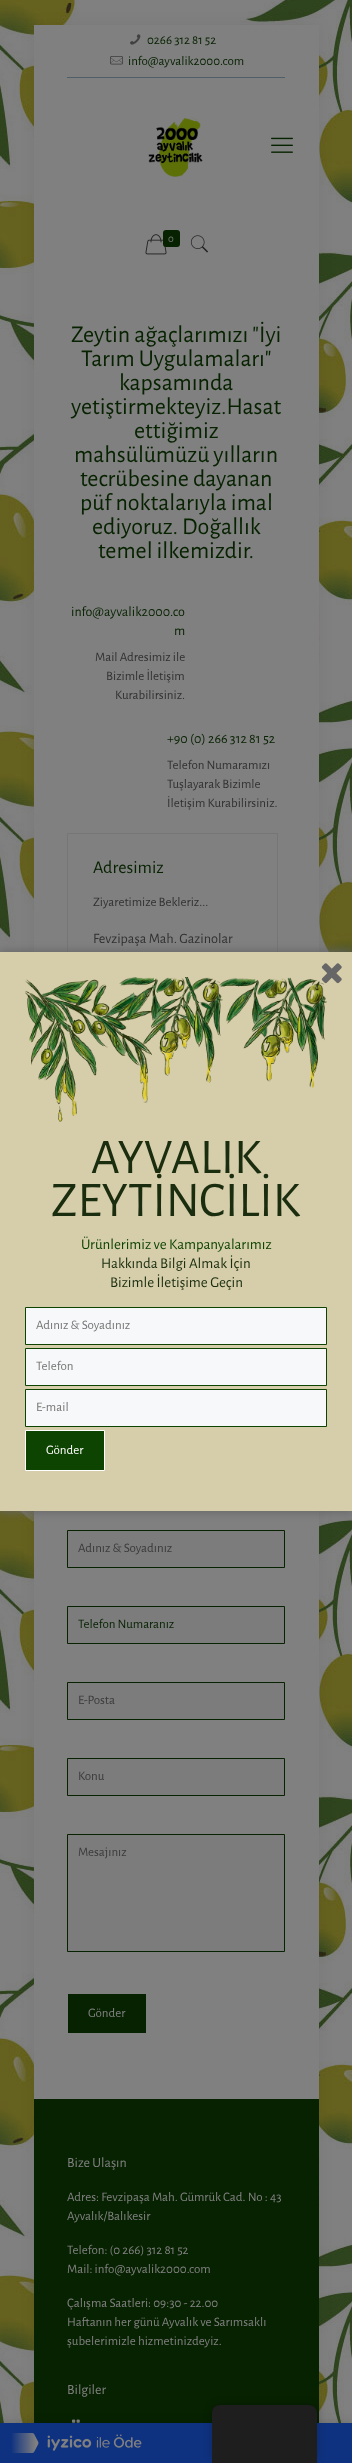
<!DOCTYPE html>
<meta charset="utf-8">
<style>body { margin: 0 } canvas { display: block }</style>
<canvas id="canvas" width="352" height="2463"></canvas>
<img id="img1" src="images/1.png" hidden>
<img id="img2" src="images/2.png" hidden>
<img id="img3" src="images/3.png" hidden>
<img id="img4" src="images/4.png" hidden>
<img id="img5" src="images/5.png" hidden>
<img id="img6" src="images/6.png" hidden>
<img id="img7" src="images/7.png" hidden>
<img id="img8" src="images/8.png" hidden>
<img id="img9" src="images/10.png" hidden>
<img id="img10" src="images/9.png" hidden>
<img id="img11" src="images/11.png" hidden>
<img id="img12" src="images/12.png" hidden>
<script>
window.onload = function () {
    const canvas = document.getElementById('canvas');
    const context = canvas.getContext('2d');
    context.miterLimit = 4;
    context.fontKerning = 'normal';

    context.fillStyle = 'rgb(255, 255, 255)';
    context.fillRect(0, 0, 352, 2463);
    context.drawImage(document.getElementById('img1'), 0, 0, 352, 2423);
    context.fillStyle = 'rgba(0, 0, 0, 0.06)';
    context.filter = 'blur(7.5px)';
    context.beginPath();
    context.rect(34, 25, 285, 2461);
    context.fill();
    context.filter = 'none';
    context.fillStyle = 'rgb(128, 128, 128)';
    context.fillRect(34, 25, 285, 248);
    context.fillStyle = 'rgb(80, 94, 104)';
    context.fillRect(67, 77, 218, 1);
    context.drawImage(document.getElementById('img2'), 130, 34, 11, 11);
    context.drawImage(document.getElementById('img3'), 110, 56, 13, 9);
    context.drawImage(document.getElementById('img4'), 148, 117, 55, 60);
    context.drawImage(document.getElementById('img5'), 271, 137, 22, 16);
    context.drawImage(document.getElementById('img6'), 145, 234, 22, 21);
    context.fillStyle = 'rgb(7, 34, 1)';
    context.beginPath();
    context.roundRect(163, 230, 17, 17, 3);
    context.fill();
    context.drawImage(document.getElementById('img7'), 190, 235, 19, 18);
    context.fillStyle = 'rgb(128, 128, 128)';
    context.fillRect(34, 273, 285, 1826);
    context.strokeStyle = 'rgb(118, 118, 118)';
    context.strokeRect(67.5, 833.5, 210, 606);
    context.fillStyle = 'rgb(124, 124, 125)';
    context.beginPath();
    context.rect(67.5, 1530.5, 217, 37);
    context.fill();
    context.strokeStyle = 'rgb(7, 34, 1)';
    context.stroke();
    context.beginPath();
    context.rect(67.5, 1606.5, 217, 37);
    context.fill();
    context.stroke();
    context.beginPath();
    context.rect(67.5, 1682.5, 217, 37);
    context.fill();
    context.stroke();
    context.beginPath();
    context.rect(67.5, 1758.5, 217, 37);
    context.fill();
    context.stroke();
    context.beginPath();
    context.rect(67.5, 1834.5, 217, 117);
    context.fill();
    context.stroke();
    context.fillStyle = 'rgb(7, 34, 1)';
    context.fillRect(68, 1994, 78, 39);
    context.fillRect(34, 2099, 285, 324);
    context.drawImage(document.getElementById('img8'), 72, 2419, 8, 4);
    context.fillStyle = 'rgb(102, 102, 102)';
    context.filter = 'blur(5px)';
    context.beginPath();
    context.rect(-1, 951, 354, 561);
    context.fill();
    context.filter = 'none';
    context.fillStyle = 'rgb(214, 206, 171)';
    context.fillRect(0, 952, 352, 559);
    context.drawImage(document.getElementById('img9'), 25, 977, 302, 145);
    context.drawImage(document.getElementById('img10'), 321, 963, 21, 21);
    context.fillStyle = 'rgb(247, 248, 249)';
    context.beginPath();
    context.rect(25.5, 1307.5, 301, 37);
    context.fill();
    context.strokeStyle = 'rgb(14, 68, 1)';
    context.stroke();
    context.beginPath();
    context.rect(25.5, 1348.5, 301, 37);
    context.fill();
    context.stroke();
    context.beginPath();
    context.rect(25.5, 1389.5, 301, 37);
    context.fill();
    context.stroke();
    context.fillStyle = 'rgb(14, 68, 1)';
    context.beginPath();
    context.rect(25.5, 1430.5, 79, 40);
    context.fill();
    context.strokeStyle = 'rgb(255, 255, 255)';
    context.stroke();
    context.fillStyle = 'rgba(0, 0, 0, 0.15)';
    context.filter = 'blur(5px)';
    context.beginPath();
    context.rect(0, 2423, 352, 40);
    context.fill();
    context.filter = 'none';
    context.fillStyle = 'rgb(15, 50, 128)';
    context.fillRect(0, 2423, 352, 40);
    context.fillStyle = 'rgba(0, 0, 0, 0.25)';
    context.filter = 'blur(4px)';
    context.beginPath();
    context.roundRect(212, 2405, 105, 58, 8);
    context.fill();
    context.filter = 'none';
    context.fillStyle = 'rgb(30, 30, 30)';
    context.beginPath();
    context.roundRect(212, 2405, 105, 58, [8, 8, 0, 0]);
    context.fill();
    context.drawImage(document.getElementById('img11'), 12, 2433, 27, 20);
    context.drawImage(document.getElementById('img12'), 47, 2434, 95, 17);
    context.font = '13px Alegreya Sans';
    context.fillStyle = 'rgb(7, 34, 1)';
    context.fillText('0266 312 81 52', 147, 44);
    context.fillText('info@ayvalik2000.com', 128, 65);
    context.font = '11px Alegreya Sans';
    context.fillStyle = 'rgb(128, 128, 128)';
    context.fillText('0', 168, 242);
    context.font = '24px Alegreya Sans';
    context.fillStyle = 'rgb(7, 34, 1)';
    context.fillText('Zeytin ağaçlarımızı "İyi', 71, 342);
    context.fillText('Tarım Uygulamaları"', 81, 366);
    context.fillText('kapsamında', 119, 390);
    context.fillText('yetiştirmekteyiz.Hasat', 71, 414);
    context.fillText('ettiğimiz', 134, 438);
    context.fillText('mahsülümüzü yılların', 74, 462);
    context.fillText('tecrübesine dayanan', 80, 486);
    context.fillText('püf noktalarıyla imal', 80, 510);
    context.fillText('ediyoruz. Doğallık', 92, 534);
    context.fillText('temel ilkemizdir.', 98, 558);
    context.font = '14px Alegreya Sans';
    context.fillText('info@ayvalik2000.co', 71, 616);
    context.fillText('m', 174, 635);
    context.font = '13px Alegreya Sans';
    context.fillStyle = 'rgb(49, 49, 49)';
    context.fillText('Mail Adresimiz ile', 95, 661);
    context.fillText('Bizimle İletişim', 106, 680);
    context.fillText('Kurabilirsiniz.', 115, 699);
    context.font = '14px Alegreya Sans';
    context.fillStyle = 'rgb(7, 34, 1)';
    context.fillText('+90 (0) 266 312 81 52', 167, 743);
    context.font = '13px Alegreya Sans';
    context.fillStyle = 'rgb(49, 49, 49)';
    context.fillText('Telefon Numaramızı', 167, 769);
    context.fillText('Tuşlayarak Bizimle', 167, 788);
    context.fillText('İletişim Kurabilirsiniz.', 167, 807);
    context.font = '18px Alegreya Sans';
    context.fillStyle = 'rgb(7, 34, 1)';
    context.fillText('Adresimiz', 93, 873);
    context.font = '13px Alegreya Sans';
    context.fillStyle = 'rgb(49, 49, 49)';
    context.fillText('Ziyaretimize Bekleriz...', 93, 906);
    context.font = '14.25px Alegreya Sans';
    context.fillText('Fevzipaşa Mah. Gazinolar', 93, 943);
    context.font = '13px Alegreya Sans';
    context.fillStyle = 'rgb(59, 59, 59)';
    context.fillText('Adınız & Soyadınız', 78, 1552);
    context.fillStyle = 'rgb(7, 34, 1)';
    context.fillText('Telefon Numaranız', 78, 1628);
    context.fillStyle = 'rgb(59, 59, 59)';
    context.fillText('E-Posta', 78, 1704);
    context.fillText('Konu', 78, 1780);
    context.fillText('Mesajınız', 78, 1856);
    context.fillStyle = 'rgb(128, 128, 128)';
    context.fillText('Gönder', 88, 2017);
    context.font = '14px Alegreya Sans';
    context.fillText('Bize Ulaşın', 67, 2167);
    context.font = '13px Alegreya Sans';
    context.fillText('Adres: Fevzipaşa Mah. Gümrük Cad. No : 43', 67, 2201);
    context.fillText('Ayvalık/Balıkesir', 67, 2220);
    context.fillText('Telefon: (0 266) 312 81 52', 67, 2254);
    context.fillText('Mail: info@ayvalik2000.com', 67, 2273);
    context.fillText('Çalışma Saatleri: 09:30 - 22.00', 67, 2307);
    context.fillText('Haftanın her günü Ayvalık ve Sarımsaklı', 67, 2326);
    context.fillText('şubelerimizle hizmetinizdeyiz.', 67, 2345);
    context.font = '14px Alegreya Sans';
    context.fillText('Bilgiler', 67, 2394);
    context.font = '50px Alegreya Sans';
    context.fillStyle = 'rgb(26, 45, 14)';
    context.fillText('AYVALIK', 91, 1173);
    context.fillText('ZEYTİNCİLİK', 51, 1216);
    context.font = '15px Alegreya Sans';
    context.fillStyle = 'rgb(14, 68, 1)';
    context.fillText('Ürünlerimiz ve Kampanyalarımız', 81, 1249);
    context.fillStyle = 'rgb(26, 45, 14)';
    context.fillText('Hakkında Bilgi Almak İçin', 101, 1268);
    context.fillText('Bizimle İletişime Geçin', 110, 1287);
    context.font = '13px Alegreya Sans';
    context.fillStyle = 'rgb(117, 117, 117)';
    context.fillText('Adınız & Soyadınız', 36, 1329);
    context.fillText('Telefon', 36, 1370);
    context.fillText('E-mail', 36, 1411);
    context.fillStyle = 'rgb(255, 255, 255)';
    context.fillText('Gönder', 46, 1454);
};
</script>
